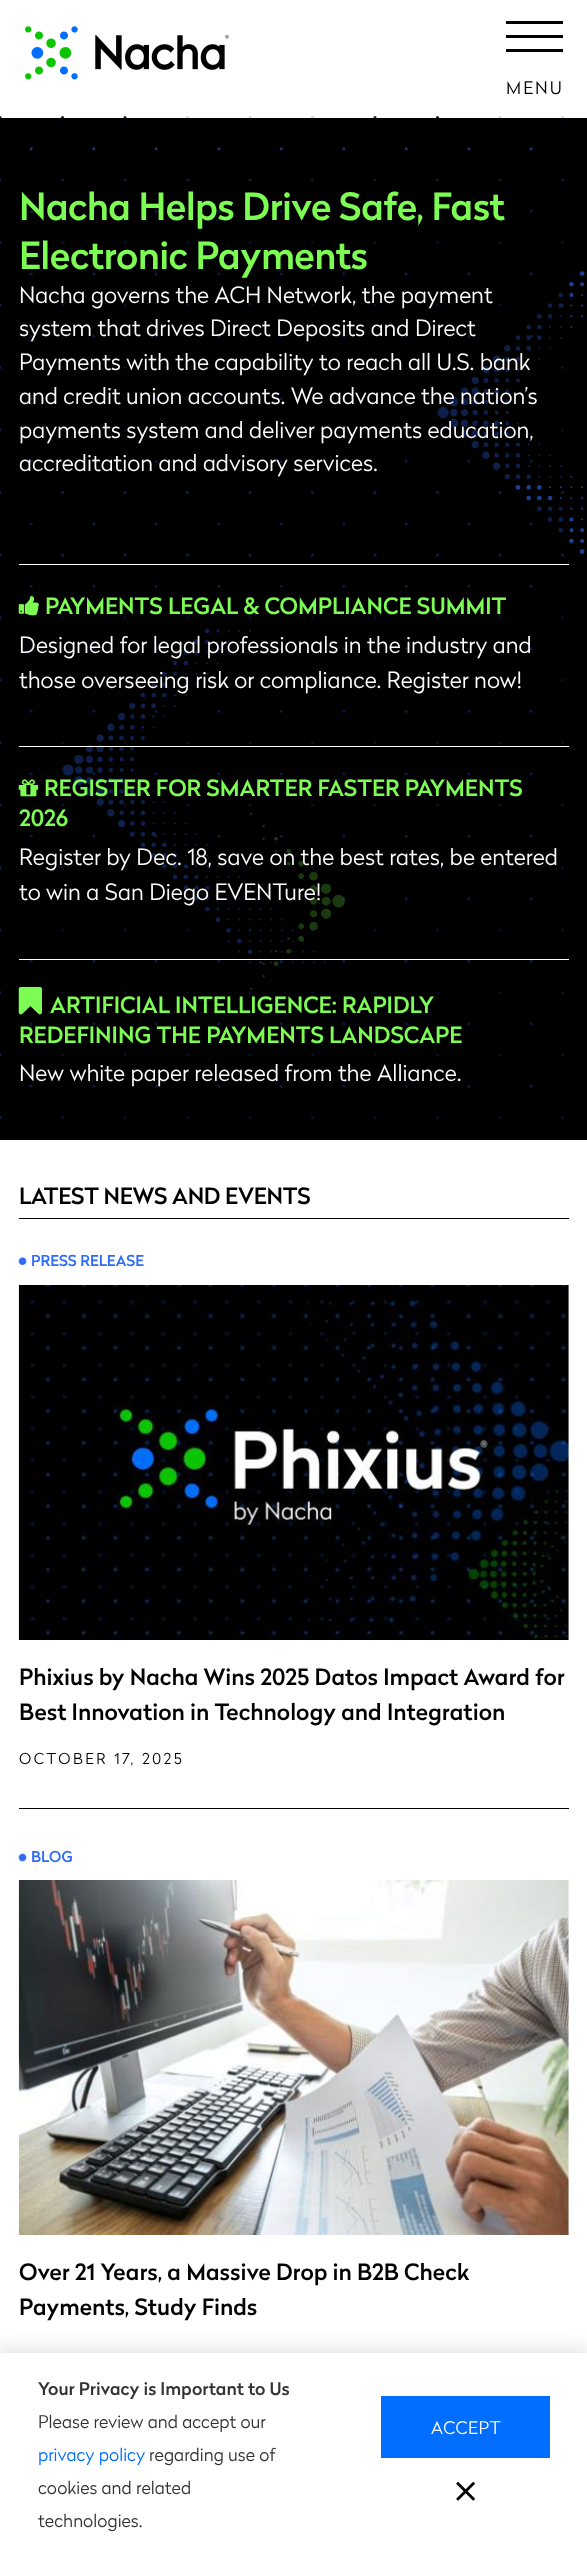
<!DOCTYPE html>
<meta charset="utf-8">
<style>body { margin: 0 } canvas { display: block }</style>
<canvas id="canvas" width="587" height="2556"></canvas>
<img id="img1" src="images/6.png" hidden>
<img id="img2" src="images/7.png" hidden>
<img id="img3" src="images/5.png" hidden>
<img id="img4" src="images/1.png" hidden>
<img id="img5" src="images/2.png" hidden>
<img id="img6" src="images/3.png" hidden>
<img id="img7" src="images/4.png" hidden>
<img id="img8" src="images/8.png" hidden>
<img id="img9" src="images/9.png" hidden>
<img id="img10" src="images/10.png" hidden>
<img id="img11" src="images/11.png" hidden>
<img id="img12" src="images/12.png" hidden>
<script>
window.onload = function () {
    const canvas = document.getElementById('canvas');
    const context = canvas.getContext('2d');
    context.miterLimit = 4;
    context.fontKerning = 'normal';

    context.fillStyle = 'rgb(255, 255, 255)';
    context.fillRect(0, 0, 587, 2556);
    context.fillRect(0, 116, 564, 2);
    context.fillStyle = 'rgb(0, 0, 0)';
    context.fillRect(0, 119, 587, 1021);
    context.beginPath();
    context.moveTo(0, 117.5);
    context.lineTo(0, 1117.8);
    context.strokeStyle = 'rgb(14, 32, 74)';
    context.lineWidth = 3.1;
    context.lineCap = 'round';
    context.setLineDash([0, 62.5]);
    context.stroke();
    context.beginPath();
    context.moveTo(93.8, 148.8);
    context.lineTo(93.8, 1086.5);
    context.strokeStyle = 'rgb(24, 54, 123)';
    context.stroke();
    context.beginPath();
    context.moveTo(156.2, 148.8);
    context.lineTo(156.2, 1086.5);
    context.stroke();
    context.beginPath();
    context.moveTo(218.8, 148.8);
    context.lineTo(218.8, 1086.5);
    context.stroke();
    context.beginPath();
    context.moveTo(281.2, 148.8);
    context.lineTo(281.2, 1086.5);
    context.stroke();
    context.drawImage(document.getElementById('img1'), 62, 628, 264, 336);
    context.beginPath();
    context.moveTo(62.5, 117.5);
    context.lineTo(62.5, 1117.8);
    context.strokeStyle = 'rgb(14, 32, 74)';
    context.stroke();
    context.beginPath();
    context.moveTo(125, 117.5);
    context.lineTo(125, 1117.8);
    context.stroke();
    context.beginPath();
    context.moveTo(187.5, 117.5);
    context.lineTo(187.5, 1117.8);
    context.strokeStyle = 'rgba(47, 108, 246, 0.3)';
    context.stroke();
    context.beginPath();
    context.moveTo(343.8, 148.8);
    context.lineTo(343.8, 1086.5);
    context.strokeStyle = 'rgb(24, 54, 123)';
    context.stroke();
    context.drawImage(document.getElementById('img2'), 250, 812, 95, 178);
    context.beginPath();
    context.moveTo(250, 117.5);
    context.lineTo(250, 1117.8);
    context.strokeStyle = 'rgba(47, 108, 246, 0.3)';
    context.stroke();
    context.beginPath();
    context.moveTo(312.5, 117.5);
    context.lineTo(312.5, 1117.8);
    context.stroke();
    context.beginPath();
    context.moveTo(375, 117.5);
    context.lineTo(375, 1117.8);
    context.strokeStyle = 'rgb(14, 32, 74)';
    context.stroke();
    context.beginPath();
    context.moveTo(468.8, 148.8);
    context.lineTo(468.8, 1086.5);
    context.strokeStyle = 'rgb(24, 54, 123)';
    context.stroke();
    context.beginPath();
    context.moveTo(531.2, 148.8);
    context.lineTo(531.2, 1086.5);
    context.stroke();
    context.drawImage(document.getElementById('img3'), 437, 271, 148, 283);
    context.beginPath();
    context.moveTo(437.5, 117.5);
    context.lineTo(437.5, 1117.8);
    context.strokeStyle = 'rgb(14, 32, 74)';
    context.stroke();
    context.beginPath();
    context.moveTo(500, 117.5);
    context.lineTo(500, 1117.8);
    context.strokeStyle = 'rgba(47, 108, 246, 0.3)';
    context.stroke();
    context.beginPath();
    context.moveTo(562.5, 117.5);
    context.lineTo(562.5, 1117.8);
    context.stroke();
    context.fillRect(0, 118, 587, 1);
    context.drawImage(document.getElementById('img4'), 25, 26, 204, 54);
    context.fillRect(506, 35, 57, 3);
    context.fillRect(506, 21, 57, 3);
    context.fillRect(506, 49, 57, 3);
    context.beginPath();
    context.moveTo(31.2, 148.8);
    context.lineTo(31.2, 1086.5);
    context.strokeStyle = 'rgb(24, 54, 123)';
    context.stroke();
    context.beginPath();
    context.moveTo(406.2, 148.8);
    context.lineTo(406.2, 1086.5);
    context.stroke();
    context.fillStyle = 'rgba(0, 0, 0, 0.5)';
    context.fillRect(29, 180, 535, 96);
    context.fillRect(29, 292, 535, 188);
    context.fillRect(29, 506, 535, 27);
    context.fillRect(29, 584, 535, 535);
    context.fillStyle = 'rgb(255, 255, 255)';
    context.fillRect(19, 564, 550, 1);
    context.fillRect(19, 746, 550, 1);
    context.drawImage(document.getElementById('img5'), 18, 596, 21, 20);
    context.fillRect(19, 959, 550, 1);
    context.drawImage(document.getElementById('img6'), 18, 779, 21, 18);
    context.drawImage(document.getElementById('img7'), 18, 986, 24, 29);
    context.fillStyle = 'rgb(0, 0, 0)';
    context.fillRect(19, 1218, 550, 1);
    context.fillRect(19, 1808, 550, 1);
    context.drawImage(document.getElementById('img8'), 18, 1257, 9, 8);
    context.drawImage(document.getElementById('img9'), 18, 1285, 551, 355);
    context.drawImage(document.getElementById('img10'), 18, 1853, 9, 9);
    context.drawImage(document.getElementById('img11'), 18, 1880, 551, 355);
    context.fillStyle = 'rgba(0, 0, 0, 0.1)';
    context.filter = 'blur(10px)';
    context.beginPath();
    context.rect(-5, 2348, 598, 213);
    context.fill();
    context.filter = 'none';
    context.fillStyle = 'rgb(255, 255, 255)';
    context.fillRect(0, 2353, 587, 203);
    context.fillStyle = 'rgb(1, 110, 255)';
    context.fillRect(381, 2396, 169, 62);
    context.drawImage(document.getElementById('img12'), 456, 2481, 19, 20);
    context.letterSpacing = '2px';
    context.font = '300 17.5px "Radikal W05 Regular"';
    context.fillStyle = 'rgb(0, 0, 0)';
    context.fillText('MENU', 506, 94);
    context.letterSpacing = '-0.55px';
    context.font = '500 37.5px "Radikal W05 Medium"';
    context.fillStyle = 'rgb(125, 252, 84)';
    context.fillText('Nacha Helps Drive Safe, Fast', 19, 220);
    context.fillText('Electronic Payments', 19, 269);
    context.letterSpacing = '0px';
    context.font = '300 22.5px "Radikal W05 Regular"';
    context.fillStyle = 'rgb(255, 255, 255)';
    context.fillText('Nacha governs the ACH Network, the payment', 19, 303);
    context.fillText('system that drives Direct Deposits and Direct', 19, 336);
    context.fillText('Payments with the capability to reach all U.S. bank', 19, 370);
    context.fillText('and credit union accounts. We advance the nation’s', 19, 404);
    context.fillText('payments system and deliver payments education,', 19, 438);
    context.fillText('accreditation and advisory services.', 19, 471);
    context.font = '500 22.5px "Radikal W05 Medium"';
    context.fillStyle = 'rgb(125, 252, 84)';
    context.fillText('PAYMENTS LEGAL & COMPLIANCE SUMMIT', 45, 614);
    context.font = '300 22.5px "Radikal W05 Regular"';
    context.fillStyle = 'rgb(255, 255, 255)';
    context.fillText('Designed for legal professionals in the industry and', 19, 653);
    context.fillText('those overseeing risk or compliance. Register now!', 19, 688);
    context.font = '500 22.5px "Radikal W05 Medium"';
    context.fillStyle = 'rgb(125, 252, 84)';
    context.fillText('REGISTER FOR SMARTER FASTER PAYMENTS', 44, 796);
    context.fillText('2026', 19, 826);
    context.font = '300 22.5px "Radikal W05 Regular"';
    context.fillStyle = 'rgb(255, 255, 255)';
    context.fillText('Register by Dec. 18, save on the best rates, be entered', 19, 865);
    context.fillText('to win a San Diego EVENTure!', 19, 900);
    context.font = '500 22.5px "Radikal W05 Medium"';
    context.fillStyle = 'rgb(125, 252, 84)';
    context.fillText('ARTIFICIAL INTELLIGENCE: RAPIDLY', 50, 1013);
    context.fillText('REDEFINING THE PAYMENTS LANDSCAPE', 19, 1043);
    context.font = '300 22.5px "Radikal W05 Regular"';
    context.fillStyle = 'rgb(255, 255, 255)';
    context.fillText('New white paper released from the Alliance.', 19, 1081);
    context.letterSpacing = '-0.3px';
    context.font = '500 22.5px "Radikal W05 Medium"';
    context.fillStyle = 'rgb(0, 0, 0)';
    context.fillText('LATEST NEWS AND EVENTS', 19, 1204);
    context.letterSpacing = '0px';
    context.font = '500 15px "Radikal W05 Medium"';
    context.fillStyle = 'rgb(47, 108, 246)';
    context.fillText('PRESS RELEASE', 31, 1266);
    context.font = '500 22.5px "Radikal W05 Medium"';
    context.fillStyle = 'rgb(0, 0, 0)';
    context.fillText('Phixius by Nacha Wins 2025 Datos Impact Award for', 19, 1685);
    context.fillText('Best Innovation in Technology and Integration', 19, 1720);
    context.letterSpacing = '2.5px';
    context.font = '300 15px "Radikal W05 Regular"';
    context.fillText('OCTOBER 17, 2025', 19, 1764);
    context.letterSpacing = '0px';
    context.font = '500 15px "Radikal W05 Medium"';
    context.fillStyle = 'rgb(47, 108, 246)';
    context.fillText('BLOG', 31, 1862);
    context.font = '500 22.5px "Radikal W05 Medium"';
    context.fillStyle = 'rgb(0, 0, 0)';
    context.fillText('Over 21 Years, a Massive Drop in B2B Check', 19, 2280);
    context.fillText('Payments, Study Finds', 19, 2315);
    context.font = '500 17.5px "Radikal W05 Medium"';
    context.fillStyle = 'rgb(51, 51, 51)';
    context.fillText('Your Privacy is Important to Us', 38, 2395);
    context.font = '300 17.5px "Radikal W05 Regular"';
    context.fillText('Please review and accept our', 38, 2428);
    context.fillStyle = 'rgb(1, 110, 255)';
    context.fillText('privacy policy', 38, 2461);
    context.fillStyle = 'rgb(51, 51, 51)';
    context.fillText('regarding use of', 149, 2461);
    context.fillText('cookies and related', 38, 2494);
    context.fillText('technologies.', 38, 2527);
    context.letterSpacing = '0.5px';
    context.fillStyle = 'rgb(255, 255, 255)';
    context.fillText('ACCEPT', 431, 2434);
};
</script>
